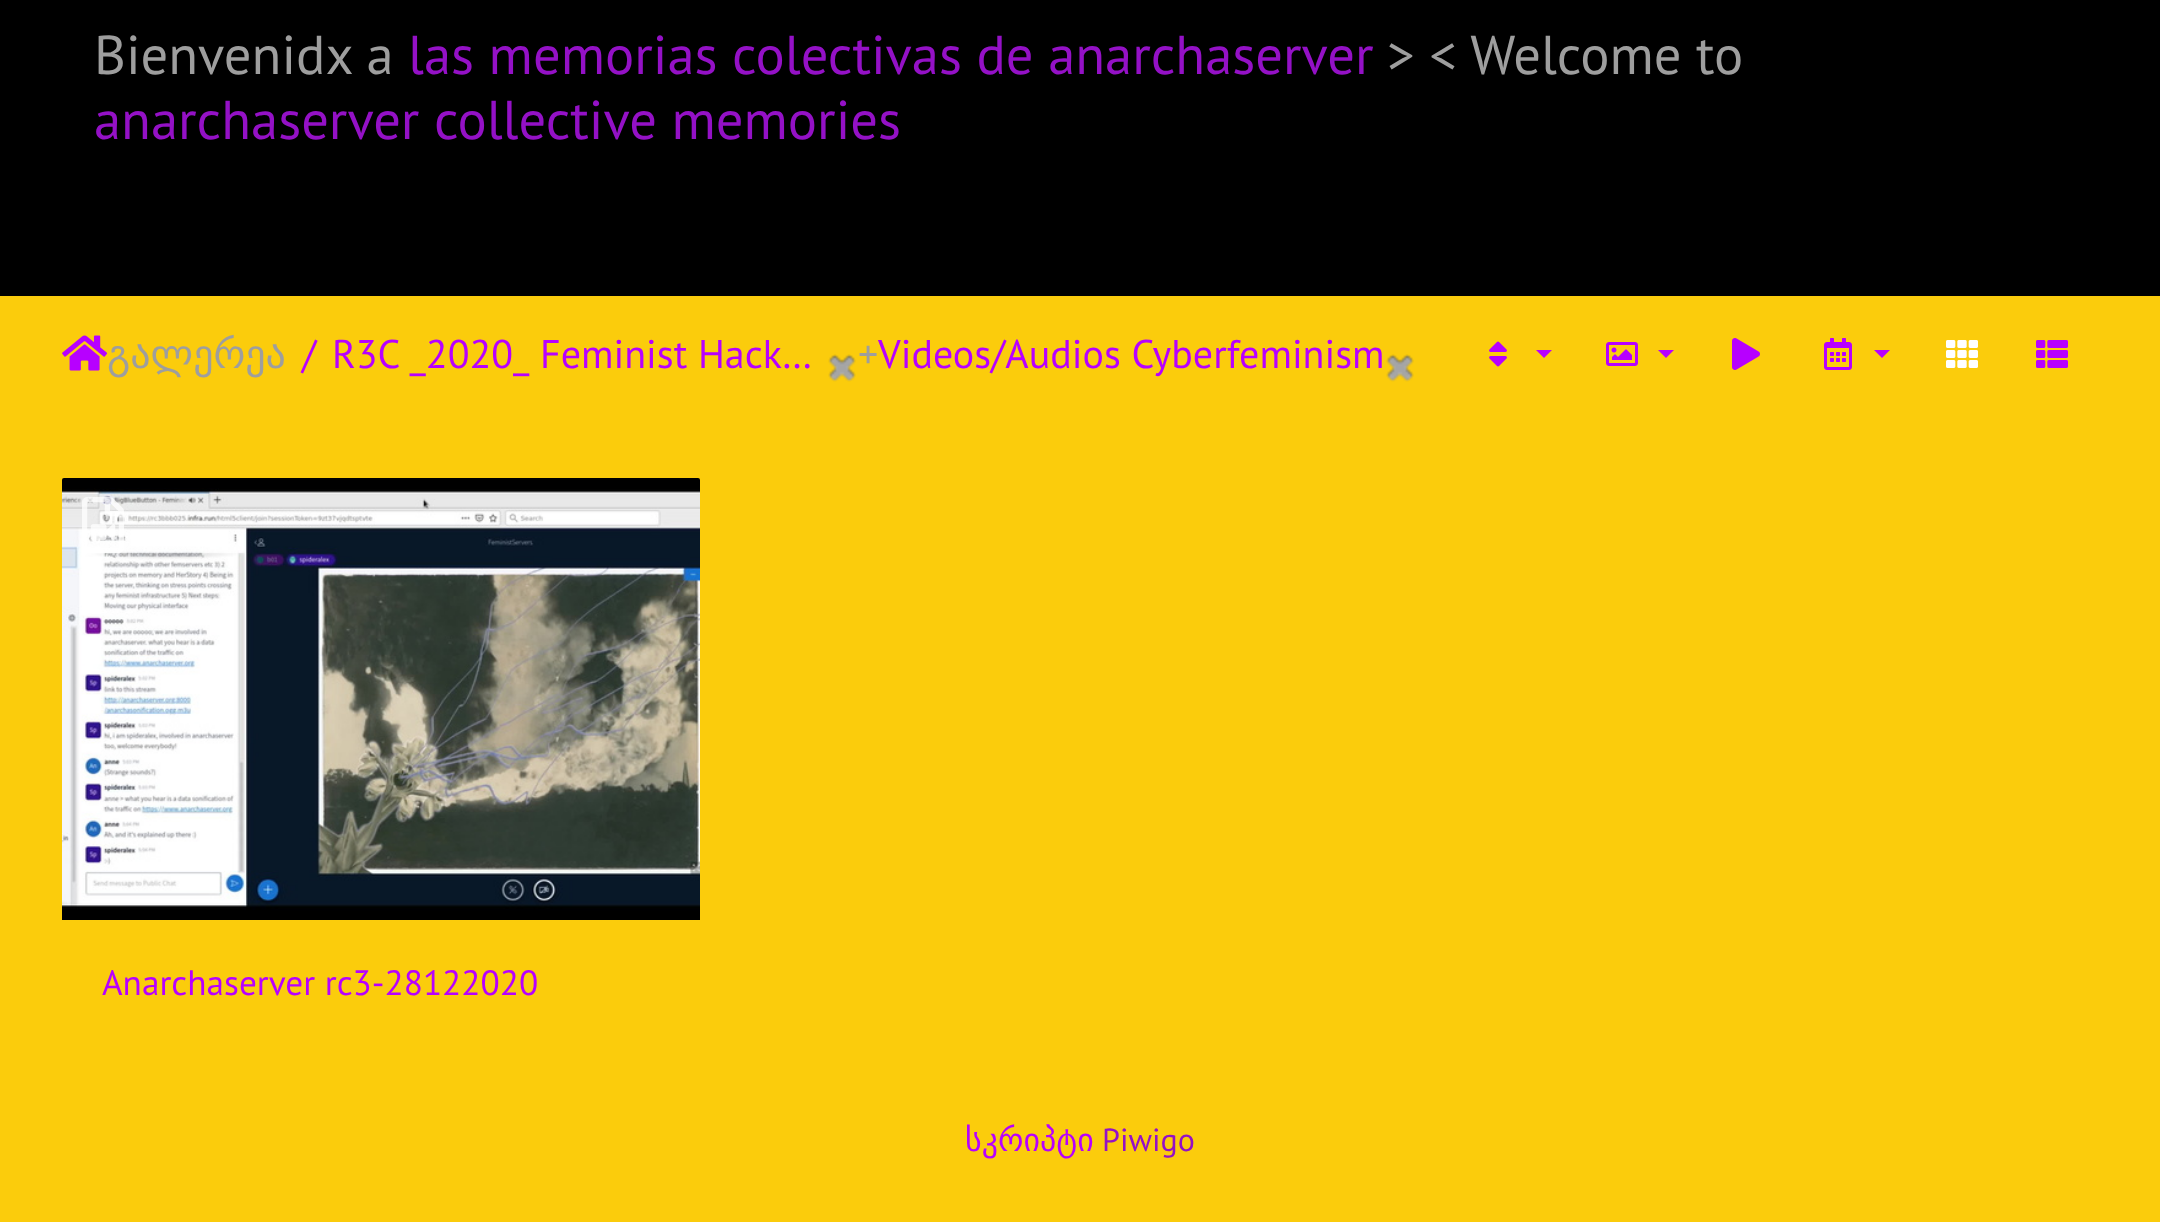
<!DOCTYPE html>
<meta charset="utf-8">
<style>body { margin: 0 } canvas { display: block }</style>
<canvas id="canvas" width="2160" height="1222"></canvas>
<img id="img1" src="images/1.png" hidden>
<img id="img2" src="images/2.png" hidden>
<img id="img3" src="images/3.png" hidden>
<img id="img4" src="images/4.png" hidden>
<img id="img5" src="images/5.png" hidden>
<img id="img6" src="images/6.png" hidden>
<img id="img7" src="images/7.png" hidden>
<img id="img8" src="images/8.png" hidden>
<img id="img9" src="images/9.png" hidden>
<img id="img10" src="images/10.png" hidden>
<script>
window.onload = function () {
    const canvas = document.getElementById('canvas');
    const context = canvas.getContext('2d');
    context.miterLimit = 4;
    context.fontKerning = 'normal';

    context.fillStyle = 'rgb(251, 204, 12)';
    context.fillRect(0, 0, 2160, 1222);
    context.fillStyle = 'rgb(0, 0, 0)';
    context.fillRect(0, 0, 2160, 296);
    context.drawImage(document.getElementById('img1'), 62, 335, 46, 36);
    context.drawImage(document.getElementById('img2'), 828, 354, 28, 28);
    context.drawImage(document.getElementById('img2'), 1386, 354, 28, 28);
    context.drawImage(document.getElementById('img3'), 1489, 341, 18, 26);
    context.fillStyle = 'rgb(183, 0, 255)';
    context.beginPath();
    context.moveTo(1536, 350);
    context.lineTo(1552, 350);
    context.lineTo(1544, 358);
    context.closePath();
    context.fill();
    context.drawImage(document.getElementById('img4'), 1606, 342, 32, 24);
    context.beginPath();
    context.moveTo(1658, 350);
    context.lineTo(1674, 350);
    context.lineTo(1666, 358);
    context.closePath();
    context.fill();
    context.drawImage(document.getElementById('img5'), 1732, 338, 28, 32);
    context.drawImage(document.getElementById('img6'), 1824, 338, 28, 32);
    context.beginPath();
    context.moveTo(1874, 350);
    context.lineTo(1890, 350);
    context.lineTo(1882, 358);
    context.closePath();
    context.fill();
    context.drawImage(document.getElementById('img7'), 1946, 340, 32, 28);
    context.drawImage(document.getElementById('img8'), 2036, 340, 32, 28);
    context.drawImage(document.getElementById('img9'), 62, 478, 638, 442);
    context.drawImage(document.getElementById('img10'), 82, 497, 42, 56);
    context.font = '54.6px PT Sans';
    context.fillStyle = 'rgb(158, 158, 158)';
    context.fillText('Bienvenidx a', 94, 74);
    context.fillStyle = 'rgb(148, 17, 198)';
    context.fillText('las memorias colectivas de anarchaserver', 408, 74);
    context.fillStyle = 'rgb(158, 158, 158)';
    context.fillText('> < Welcome to', 1387, 74);
    context.fillStyle = 'rgb(148, 17, 198)';
    context.fillText('anarchaserver collective memories', 94, 139);
    context.font = '40px DejaVu Sans';
    context.fillStyle = 'rgb(158, 158, 158)';
    context.fillText('გალერეა', 107, 368);
    context.font = '40px PT Sans';
    context.fillStyle = 'rgb(183, 0, 255)';
    context.fillText('/', 302, 368);
    context.fillText('R3C _2020_ Feminist Hack…', 332, 368);
    context.fillStyle = 'rgb(158, 158, 158)';
    context.fillText('+', 858, 368);
    context.fillStyle = 'rgb(183, 0, 255)';
    context.fillText('Videos/Audios Cyberfeminism', 878, 368);
    context.font = '35.25px PT Sans';
    context.fillText('Anarchaserver rc3-28122020', 102, 995);
    context.font = '32px DejaVu Sans';
    context.fillText('სკრიპტი', 965, 1151);
    context.font = '32px PT Sans';
    context.fillStyle = 'rgb(148, 17, 198)';
    context.fillText('Piwigo', 1102, 1151);
};
</script>
